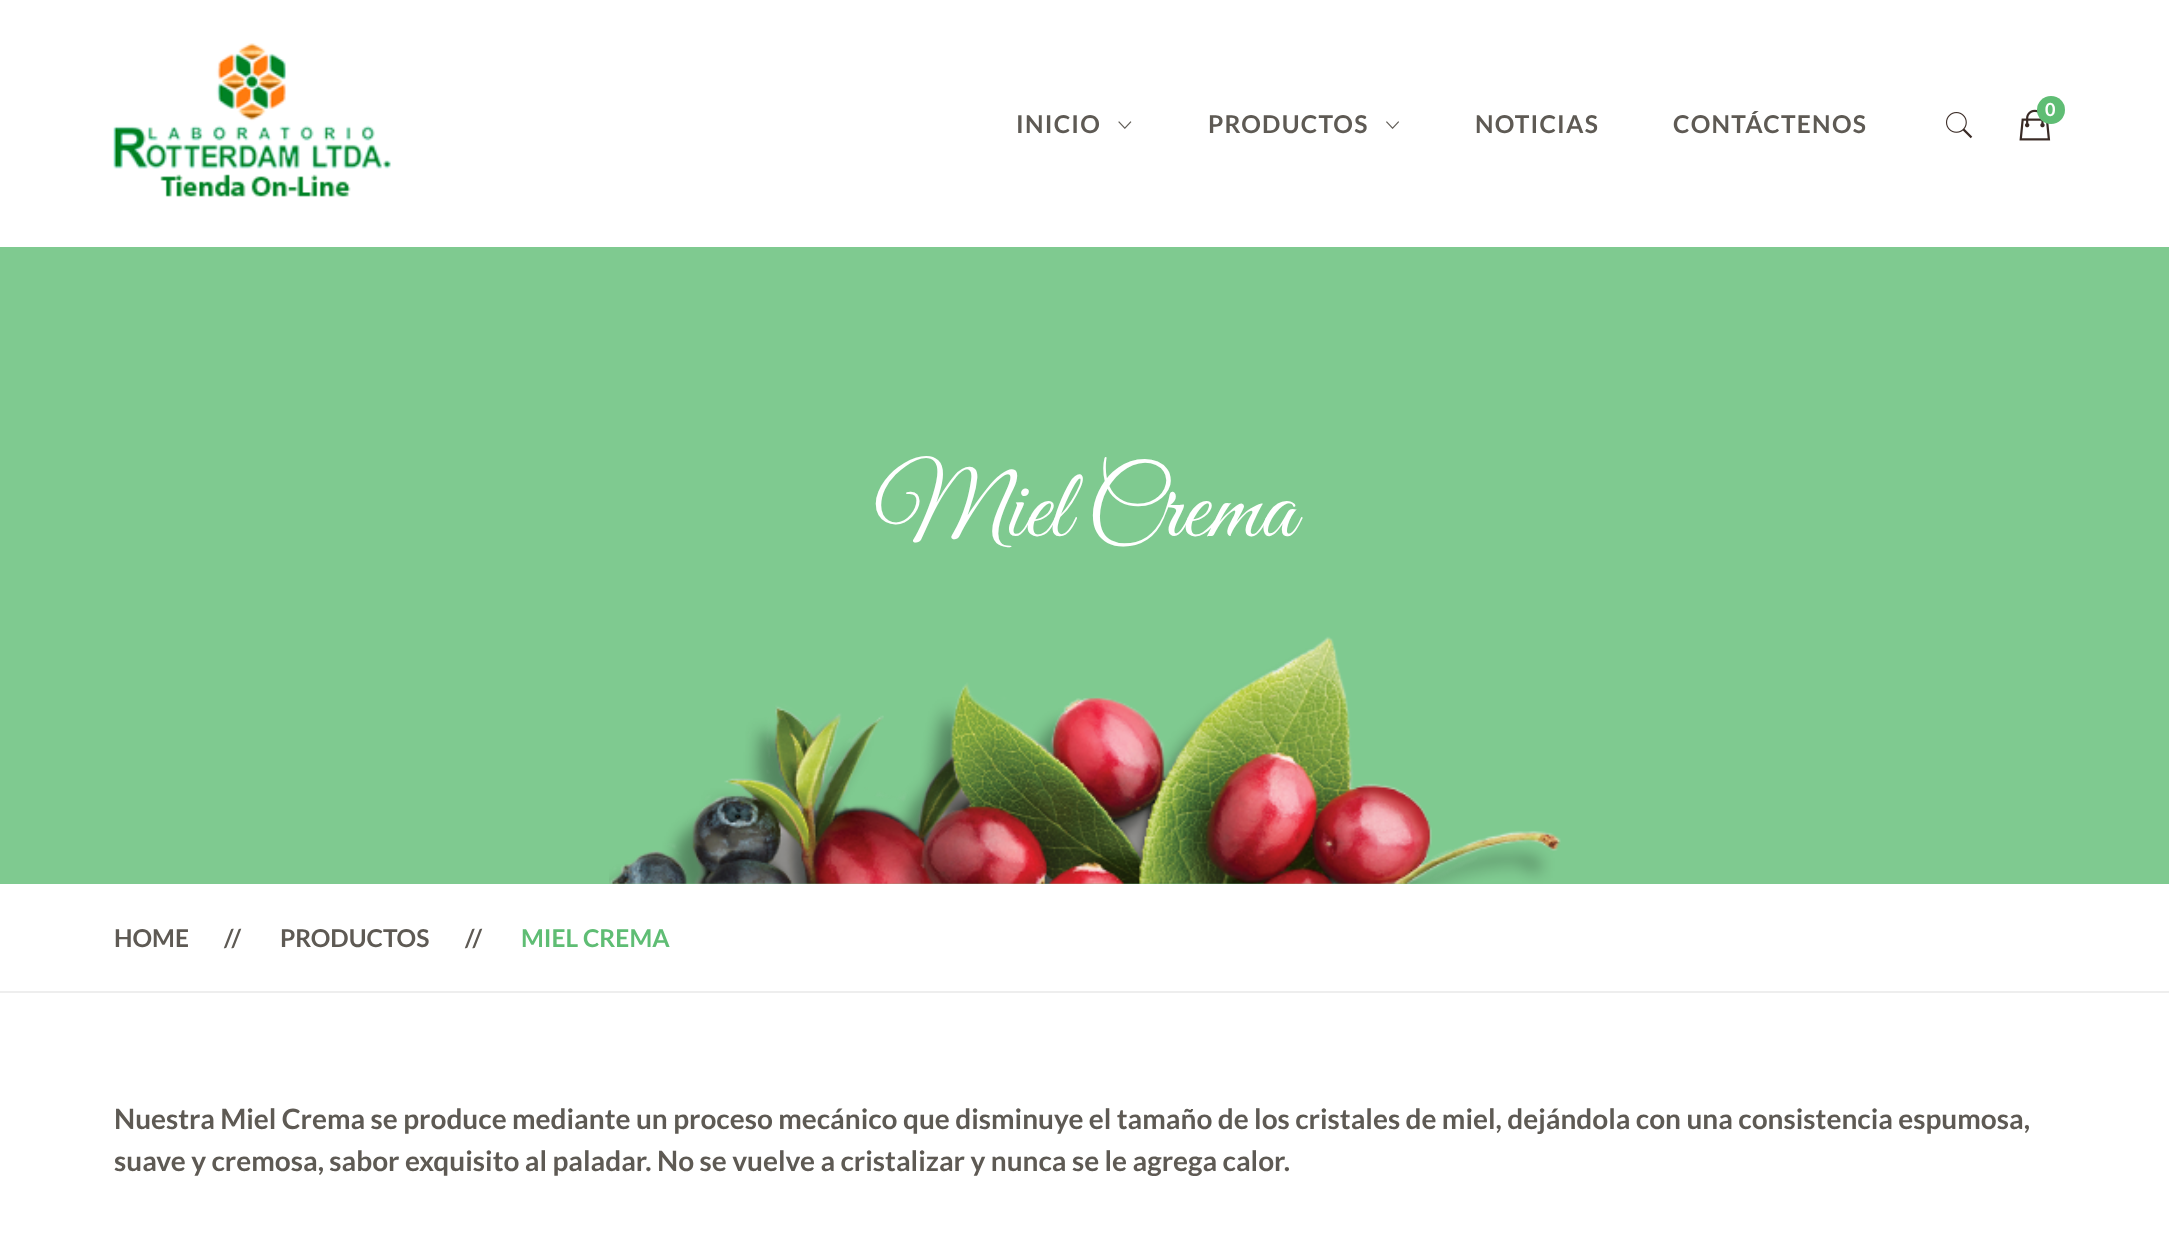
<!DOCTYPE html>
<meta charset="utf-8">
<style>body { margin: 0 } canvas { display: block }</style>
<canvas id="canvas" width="2169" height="1240"></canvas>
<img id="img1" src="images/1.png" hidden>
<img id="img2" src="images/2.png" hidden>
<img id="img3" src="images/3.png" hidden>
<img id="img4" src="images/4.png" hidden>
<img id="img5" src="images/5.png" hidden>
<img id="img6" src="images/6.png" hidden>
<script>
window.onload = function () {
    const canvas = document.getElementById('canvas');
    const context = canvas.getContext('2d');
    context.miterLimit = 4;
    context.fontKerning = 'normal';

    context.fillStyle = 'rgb(255, 255, 255)';
    context.fillRect(0, 0, 2169, 1240);
    context.drawImage(document.getElementById('img1'), 113, 43, 278, 154);
    context.drawImage(document.getElementById('img2'), 1118, 121, 14, 8);
    context.drawImage(document.getElementById('img3'), 1386, 121, 13, 8);
    context.drawImage(document.getElementById('img4'), 2019, 109, 32, 32);
    context.fillStyle = 'rgb(95, 189, 116)';
    context.beginPath();
    context.arc(2051, 110, 14, 0, 2 * Math.PI);
    context.fill();
    context.drawImage(document.getElementById('img5'), 1946, 112, 27, 27);
    context.fillStyle = 'rgb(127, 202, 144)';
    context.fillRect(0, 247, 2169, 637);
    context.drawImage(document.getElementById('img6'), 609, 636, 952, 248);
    context.fillStyle = 'rgb(238, 238, 238)';
    context.fillRect(0, 991, 2169, 2);
    context.letterSpacing = '1.25px';
    context.font = 'bold 24.5px Lato';
    context.fillStyle = 'rgb(94, 90, 84)';
    context.fillText('INICIO', 1016, 133);
    context.fillText('PRODUCTOS', 1208, 133);
    context.fillText('NOTICIAS', 1475, 133);
    context.fillText('CONTÁCTENOS', 1673, 133);
    context.letterSpacing = '0px';
    context.font = 'bold 18px Lato';
    context.fillStyle = 'rgb(255, 255, 255)';
    context.fillText('0', 2045, 116);
    context.font = '98px Great Vibes';
    context.fillText('Miel Crema', 874, 536);
    context.font = 'bold 24.5px Lato';
    context.fillStyle = 'rgb(94, 90, 84)';
    context.fillText('HOME', 114, 947);
    context.fillText('//', 224, 947);
    context.fillText('PRODUCTOS', 280, 947);
    context.fillText('//', 465, 947);
    context.fillStyle = 'rgb(95, 189, 116)';
    context.fillText('MIEL CREMA', 521, 947);
    context.font = 'bold 28px Lato';
    context.fillStyle = 'rgb(94, 90, 84)';
    context.fillText('Nuestra Miel Crema se produce mediante un proceso mecánico que disminuye el tamaño de los cristales de miel, dejándola con una consistencia espumosa,', 114, 1129);
    context.fillText('suave y cremosa, sabor exquisito al paladar. No se vuelve a cristalizar y nunca se le agrega calor.', 114, 1171);
};
</script>
